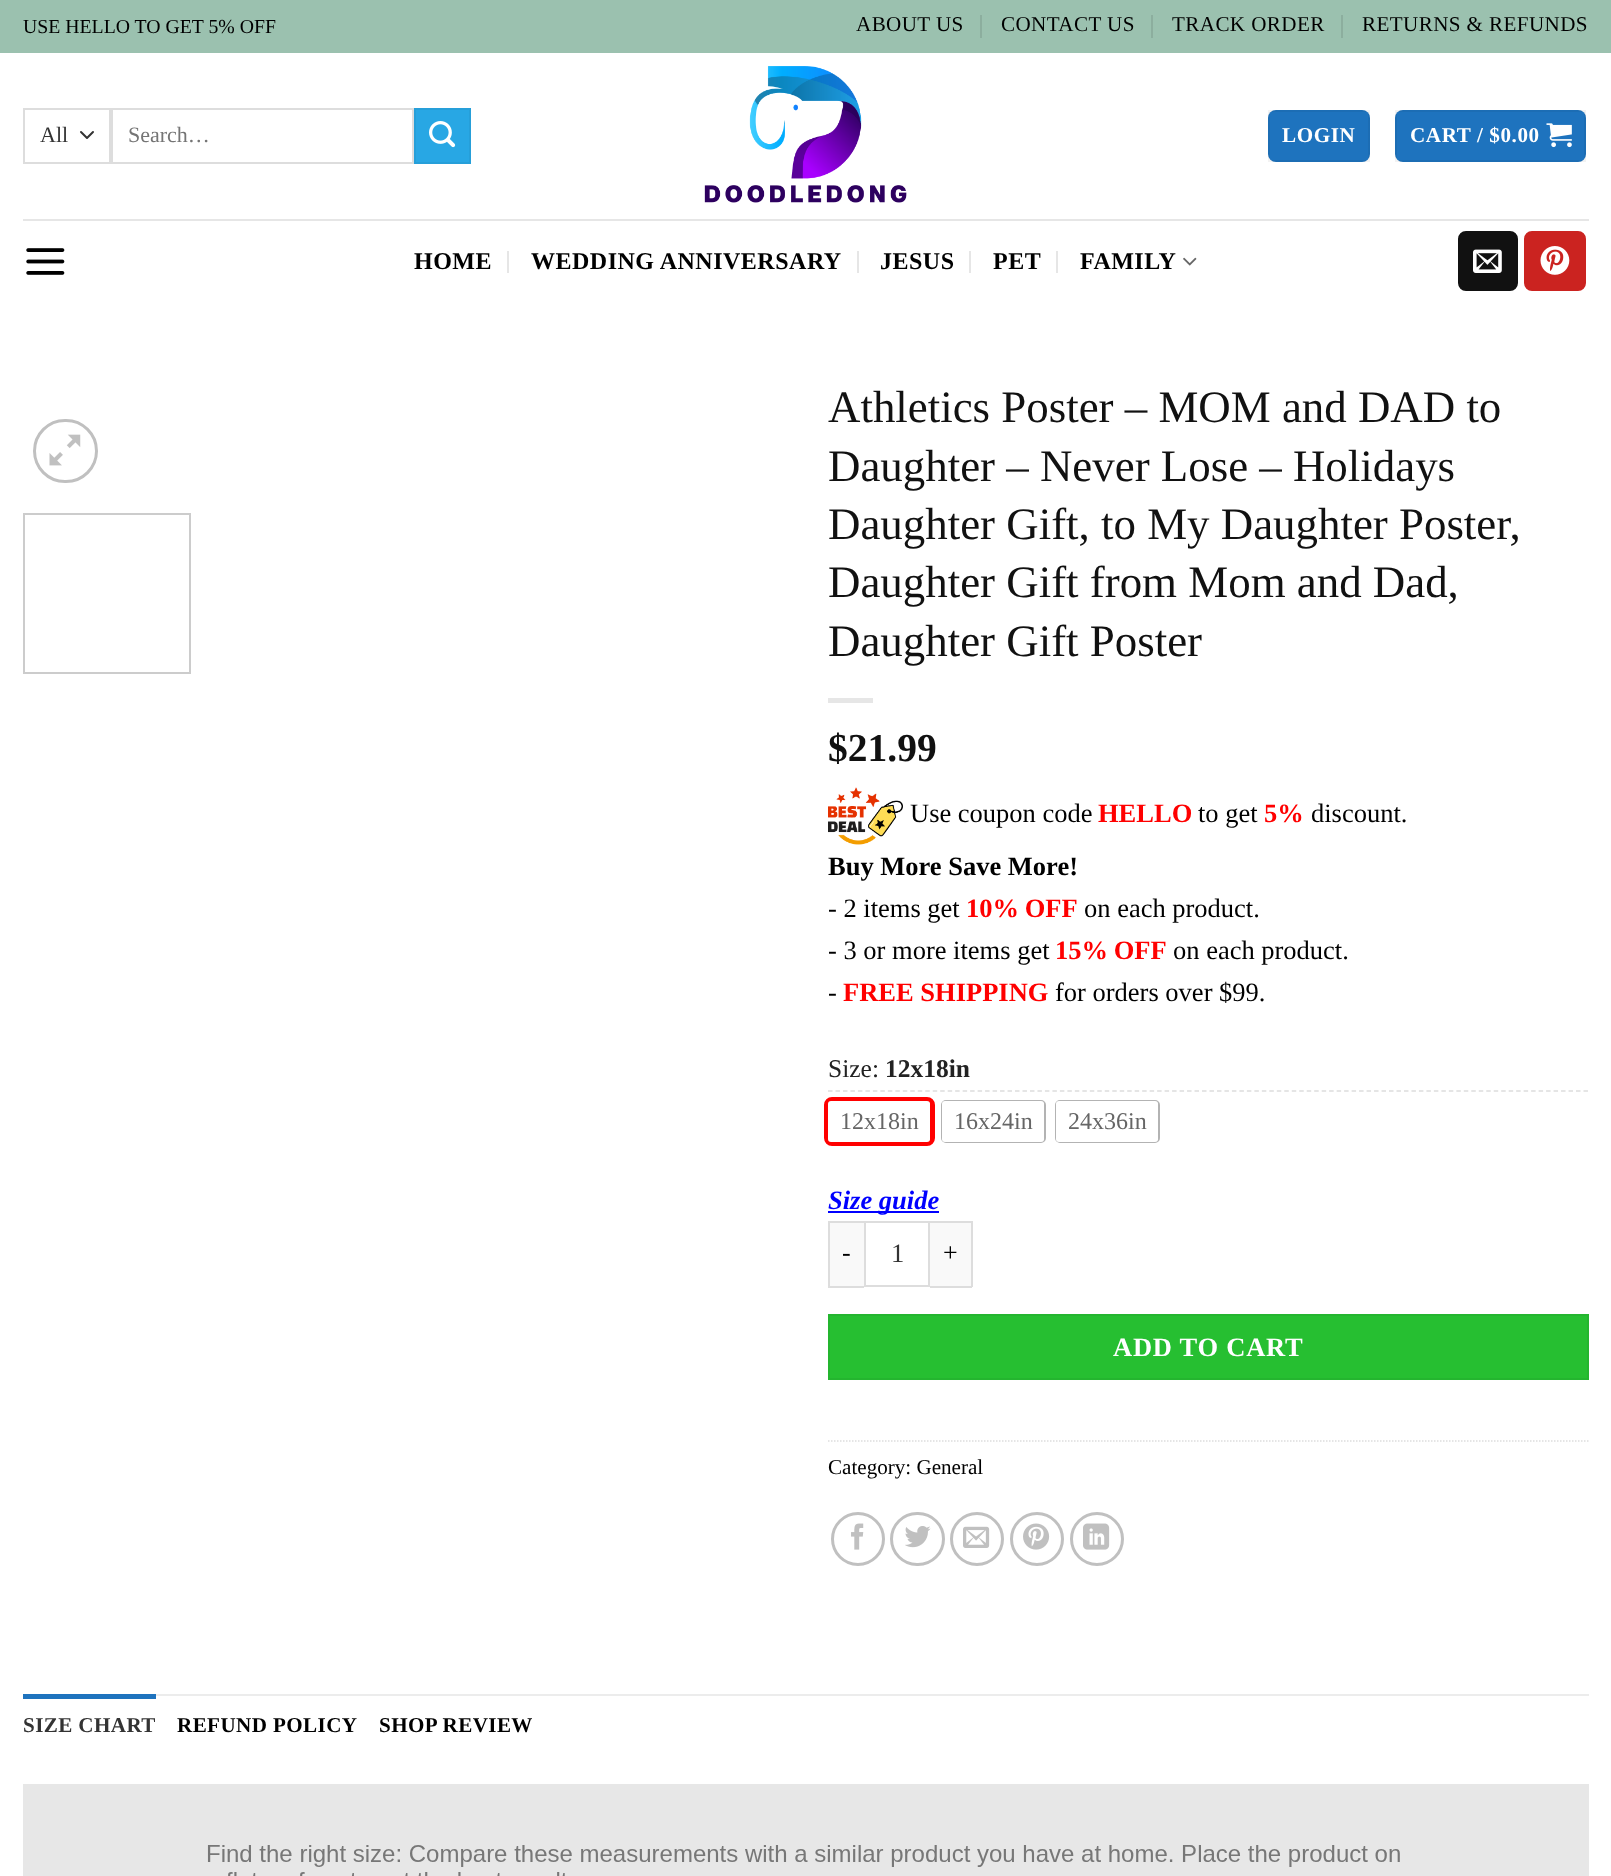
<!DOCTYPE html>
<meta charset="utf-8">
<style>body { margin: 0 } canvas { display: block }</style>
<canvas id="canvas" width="1611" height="1876"></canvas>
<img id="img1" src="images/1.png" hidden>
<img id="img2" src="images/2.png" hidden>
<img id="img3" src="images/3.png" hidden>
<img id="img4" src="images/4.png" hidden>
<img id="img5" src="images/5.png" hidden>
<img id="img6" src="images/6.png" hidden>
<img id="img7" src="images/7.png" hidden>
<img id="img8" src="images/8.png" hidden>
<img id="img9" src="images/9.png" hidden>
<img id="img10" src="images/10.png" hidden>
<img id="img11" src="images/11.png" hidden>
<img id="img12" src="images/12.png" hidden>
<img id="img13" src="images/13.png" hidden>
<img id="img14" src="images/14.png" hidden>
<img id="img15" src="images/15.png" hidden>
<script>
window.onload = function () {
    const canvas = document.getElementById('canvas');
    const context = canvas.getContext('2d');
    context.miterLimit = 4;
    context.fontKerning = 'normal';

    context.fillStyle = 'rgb(255, 255, 255)';
    context.fillRect(0, 0, 1611, 1876);
    context.fillStyle = 'rgb(155, 193, 175)';
    context.fillRect(0, 0, 1611, 53);
    context.fillStyle = 'rgb(140, 174, 158)';
    context.fillRect(980, 15, 2, 23);
    context.fillRect(1151, 15, 2, 23);
    context.fillRect(1341, 15, 2, 23);
    context.beginPath();
    context.moveTo(81, 132);
    context.lineTo(87, 138);
    context.lineTo(93, 132);
    context.strokeStyle = 'rgb(51, 51, 51)';
    context.lineWidth = 2;
    context.lineCap = 'round';
    context.lineJoin = 'round';
    context.stroke();
    context.strokeStyle = 'rgb(221, 221, 221)';
    context.lineJoin = 'miter';
    context.strokeRect(24, 109, 86, 54);
    context.strokeRect(112, 109, 301, 54);
    context.fillStyle = 'rgb(40, 167, 228)';
    context.beginPath();
    context.rect(415, 109, 55, 54);
    context.fill();
    context.strokeStyle = 'rgb(38, 159, 217)';
    context.stroke();
    context.drawImage(document.getElementById('img1'), 429, 121, 27, 27);
    context.drawImage(document.getElementById('img2'), 704, 66, 203, 137);
    context.fillStyle = 'rgb(30, 115, 190)';
    context.beginPath();
    context.roundRect(1268, 110, 102, 52, 8);
    context.fill();
    context.strokeStyle = 'rgba(0, 0, 0, 0.05)';
    context.strokeRect(1269, 111, 100, 50);
    context.beginPath();
    context.roundRect(1395, 110, 191, 52, 8);
    context.fill();
    context.strokeRect(1396, 111, 189, 50);
    context.drawImage(document.getElementById('img3'), 1546, 123, 26, 25);
    context.fillStyle = 'rgb(230, 230, 230)';
    context.fillRect(23, 219, 1566, 2);
    context.drawImage(document.getElementById('img4'), 26, 248, 39, 27);
    context.fillRect(507, 251, 2, 22);
    context.fillRect(857, 251, 2, 22);
    context.fillRect(969, 251, 2, 22);
    context.fillRect(1056, 251, 2, 22);
    context.drawImage(document.getElementById('img5'), 1183, 257, 14, 9);
    context.fillStyle = 'rgb(17, 17, 17)';
    context.beginPath();
    context.roundRect(1459, 232, 58, 58, 7);
    context.fill();
    context.strokeStyle = 'rgb(17, 17, 17)';
    context.stroke();
    context.drawImage(document.getElementById('img6'), 1473, 249, 29, 24);
    context.fillStyle = 'rgb(203, 35, 32)';
    context.beginPath();
    context.roundRect(1525, 232, 60, 58, 7);
    context.fill();
    context.strokeStyle = 'rgb(203, 35, 32)';
    context.stroke();
    context.drawImage(document.getElementById('img7'), 1540, 246, 30, 29);
    context.beginPath();
    context.roundRect(34.5, 420.5, 62, 61, 30.5);
    context.strokeStyle = 'rgb(192, 192, 192)';
    context.lineWidth = 3;
    context.stroke();
    context.drawImage(document.getElementById('img8'), 49, 434, 32, 32);
    context.strokeStyle = 'rgb(204, 204, 204)';
    context.lineWidth = 2;
    context.strokeRect(24, 514, 166, 159);
    context.fillStyle = 'rgb(230, 230, 230)';
    context.fillRect(828, 698, 45, 5);
    context.drawImage(document.getElementById('img9'), 828, 787, 75, 58);
    context.beginPath();
    context.moveTo(828, 1091);
    context.lineTo(1588.5, 1091);
    context.strokeStyle = 'rgb(221, 221, 221)';
    context.lineWidth = 1.5;
    context.lineCap = 'butt';
    context.setLineDash([4.5, 2.98]);
    context.stroke();
    context.beginPath();
    context.roundRect(826.5, 1099.5, 106, 44, 5.5);
    context.strokeStyle = 'rgb(255, 0, 0)';
    context.lineWidth = 5;
    context.setLineDash([]);
    context.stroke();
    context.fillStyle = 'rgb(255, 255, 255)';
    context.beginPath();
    context.roundRect(828, 1101, 102, 41, 3);
    context.fill();
    context.beginPath();
    context.roundRect(942, 1101, 103, 41, 4);
    context.strokeStyle = 'rgb(179, 179, 179)';
    context.lineWidth = 2;
    context.stroke();
    context.beginPath();
    context.roundRect(942, 1101, 102, 41, 3);
    context.fill();
    context.beginPath();
    context.roundRect(1056, 1101, 103, 41, 4);
    context.stroke();
    context.beginPath();
    context.roundRect(1056, 1101, 102, 41, 3);
    context.fill();
    context.fillStyle = 'rgb(0, 0, 255)';
    context.fillRect(828, 1211, 111, 2);
    context.fillStyle = 'rgb(249, 249, 249)';
    context.fillRect(830, 1223, 34, 63);
    context.fillStyle = 'rgb(221, 221, 221)';
    context.fillRect(828, 1221, 36, 2);
    context.fillRect(828, 1286, 36, 2);
    context.fillRect(828, 1221, 2, 66);
    context.strokeStyle = 'rgb(221, 221, 221)';
    context.strokeRect(865, 1222, 64, 64);
    context.fillStyle = 'rgb(249, 249, 249)';
    context.fillRect(930, 1223, 41, 63);
    context.fillStyle = 'rgb(221, 221, 221)';
    context.fillRect(930, 1221, 42, 2);
    context.fillRect(971, 1221, 2, 66);
    context.fillRect(930, 1286, 42, 2);
    context.fillStyle = 'rgb(38, 191, 49)';
    context.beginPath();
    context.rect(829, 1315, 759, 64);
    context.fill();
    context.strokeStyle = 'rgb(36, 181, 47)';
    context.stroke();
    context.beginPath();
    context.moveTo(828, 1441);
    context.lineTo(1588.5, 1441);
    context.strokeStyle = 'rgb(221, 221, 221)';
    context.lineWidth = 1.5;
    context.setLineDash([1.5, 1.5]);
    context.stroke();
    context.beginPath();
    context.arc(858, 1539, 25.5, 0, 2 * Math.PI);
    context.strokeStyle = 'rgb(192, 192, 192)';
    context.lineWidth = 3;
    context.setLineDash([]);
    context.stroke();
    context.drawImage(document.getElementById('img10'), 851, 1523, 13, 27);
    context.beginPath();
    context.roundRect(891.5, 1513.5, 52, 51, 25.5);
    context.stroke();
    context.drawImage(document.getElementById('img11'), 905, 1526, 26, 22);
    context.beginPath();
    context.arc(977, 1539, 25.5, 0, 2 * Math.PI);
    context.stroke();
    context.drawImage(document.getElementById('img12'), 963, 1526, 27, 22);
    context.beginPath();
    context.arc(1037, 1539, 25.5, 0, 2 * Math.PI);
    context.stroke();
    context.drawImage(document.getElementById('img13'), 1023, 1523, 27, 27);
    context.beginPath();
    context.arc(1097, 1539, 25.5, 0, 2 * Math.PI);
    context.stroke();
    context.drawImage(document.getElementById('img14'), 1083, 1523, 27, 27);
    context.fillStyle = 'rgb(236, 236, 236)';
    context.fillRect(156, 1694, 1433, 2);
    context.fillStyle = 'rgb(30, 115, 190)';
    context.fillRect(23, 1694, 133, 5);
    context.drawImage(document.getElementById('img15'), 23, 1784, 1566, 92);
    context.font = '19.75px Liberation Serif';
    context.fillStyle = 'rgb(0, 0, 0)';
    context.fillText('USE HELLO TO GET 5% OFF', 23, 33);
    context.letterSpacing = '0.4px';
    context.font = '21.1px Liberation Serif';
    context.fillText('ABOUT US', 856, 31);
    context.fillText('CONTACT US', 1001, 31);
    context.fillText('TRACK ORDER', 1172, 31);
    context.fillText('RETURNS & REFUNDS', 1362, 31);
    context.letterSpacing = '0px';
    context.font = '22px Liberation Serif';
    context.fillStyle = 'rgb(51, 51, 51)';
    context.fillText('All', 40, 142);
    context.fillStyle = 'rgb(117, 117, 117)';
    context.fillText('Search…', 128, 142);
    context.letterSpacing = '0.6px';
    context.font = 'bold 21.1px Liberation Serif';
    context.fillStyle = 'rgb(255, 255, 255)';
    context.fillText('LOGIN', 1282, 142);
    context.fillText('CART / $0.00', 1410, 142);
    context.letterSpacing = '0.5px';
    context.font = 'bold 24px Liberation Serif';
    context.fillStyle = 'rgb(0, 0, 0)';
    context.fillText('HOME', 414, 269);
    context.fillText('WEDDING ANNIVERSARY', 531, 269);
    context.fillText('JESUS', 880, 269);
    context.fillText('PET', 993, 269);
    context.fillText('FAMILY', 1080, 269);
    context.letterSpacing = '0px';
    context.font = '44.9px Liberation Serif';
    context.fillStyle = 'rgb(17, 17, 17)';
    context.fillText('Athletics Poster – MOM and DAD to', 828, 422);
    context.fillText('Daughter – Never Lose – Holidays', 828, 481);
    context.fillText('Daughter Gift, to My Daughter Poster,', 828, 539);
    context.fillText('Daughter Gift from Mom and Dad,', 828, 597);
    context.fillText('Daughter Gift Poster', 828, 656);
    context.font = 'bold 39.5px Liberation Serif';
    context.fillText('$21.99', 828, 761);
    context.font = '26.5px Liberation Serif';
    context.fillStyle = 'rgb(0, 0, 0)';
    context.fillText('Use coupon code', 910, 822);
    context.font = 'bold 26.5px Liberation Serif';
    context.fillStyle = 'rgb(255, 0, 0)';
    context.fillText('HELLO', 1098, 822);
    context.font = '26.5px Liberation Serif';
    context.fillStyle = 'rgb(0, 0, 0)';
    context.fillText('to get', 1198, 822);
    context.font = 'bold 26.5px Liberation Serif';
    context.fillStyle = 'rgb(255, 0, 0)';
    context.fillText('5%', 1264, 822);
    context.font = '26.5px Liberation Serif';
    context.fillStyle = 'rgb(0, 0, 0)';
    context.fillText('discount.', 1311, 822);
    context.font = 'bold 26.5px Liberation Serif';
    context.fillText('Buy More Save More!', 828, 875);
    context.font = '26.5px Liberation Serif';
    context.fillText('- 2 items get', 828, 917);
    context.wordSpacing = '-1px';
    context.font = 'bold 26.5px Liberation Serif';
    context.fillStyle = 'rgb(255, 0, 0)';
    context.fillText('10% OFF', 966, 917);
    context.wordSpacing = '0px';
    context.font = '26.5px Liberation Serif';
    context.fillStyle = 'rgb(0, 0, 0)';
    context.fillText('on each product.', 1084, 917);
    context.fillText('- 3 or more items get', 828, 959);
    context.wordSpacing = '-1px';
    context.font = 'bold 26.5px Liberation Serif';
    context.fillStyle = 'rgb(255, 0, 0)';
    context.fillText('15% OFF', 1055, 959);
    context.wordSpacing = '0px';
    context.font = '26.5px Liberation Serif';
    context.fillStyle = 'rgb(0, 0, 0)';
    context.fillText('on each product.', 1173, 959);
    context.fillText('-', 828, 1001);
    context.font = 'bold 26.5px Liberation Serif';
    context.fillStyle = 'rgb(255, 0, 0)';
    context.fillText('FREE SHIPPING', 843, 1001);
    context.font = '26.5px Liberation Serif';
    context.fillStyle = 'rgb(0, 0, 0)';
    context.fillText('for orders over $99.', 1055, 1001);
    context.font = '25.5px Liberation Serif';
    context.fillStyle = 'rgb(34, 34, 34)';
    context.fillText('Size:', 828, 1077);
    context.font = 'bold 25.5px Liberation Serif';
    context.fillText('12x18in', 885, 1077);
    context.font = '24px Liberation Serif';
    context.fillStyle = 'rgb(102, 102, 102)';
    context.fillText('12x18in', 840, 1129);
    context.fillText('16x24in', 954, 1129);
    context.fillText('24x36in', 1068, 1129);
    context.font = 'italic bold 26.5px Liberation Serif';
    context.fillStyle = 'rgb(0, 0, 255)';
    context.fillText('Size guide', 828, 1209);
    context.letterSpacing = '1px';
    context.font = '26px Liberation Serif';
    context.fillStyle = 'rgb(0, 0, 0)';
    context.fillText('-', 842, 1261);
    context.letterSpacing = '0px';
    context.font = '26.5px Liberation Serif';
    context.fillStyle = 'rgb(51, 51, 51)';
    context.fillText('1', 891, 1262);
    context.letterSpacing = '1px';
    context.font = '26px Liberation Serif';
    context.fillStyle = 'rgb(0, 0, 0)';
    context.fillText('+', 943, 1261);
    context.letterSpacing = '0.75px';
    context.font = 'bold 26.5px Liberation Serif';
    context.fillStyle = 'rgb(255, 255, 255)';
    context.fillText('ADD TO CART', 1113, 1356);
    context.letterSpacing = '0px';
    context.font = '21.1px Liberation Serif';
    context.fillStyle = 'rgb(0, 0, 0)';
    context.fillText('Category: General', 828, 1474);
    context.letterSpacing = '0.4px';
    context.font = 'bold 21.1px Liberation Serif';
    context.fillStyle = 'rgb(51, 51, 51)';
    context.fillText('SIZE CHART', 23, 1732);
    context.fillStyle = 'rgb(0, 0, 0)';
    context.fillText('REFUND POLICY', 177, 1732);
    context.fillText('SHOP REVIEW', 379, 1732);
};
</script>
